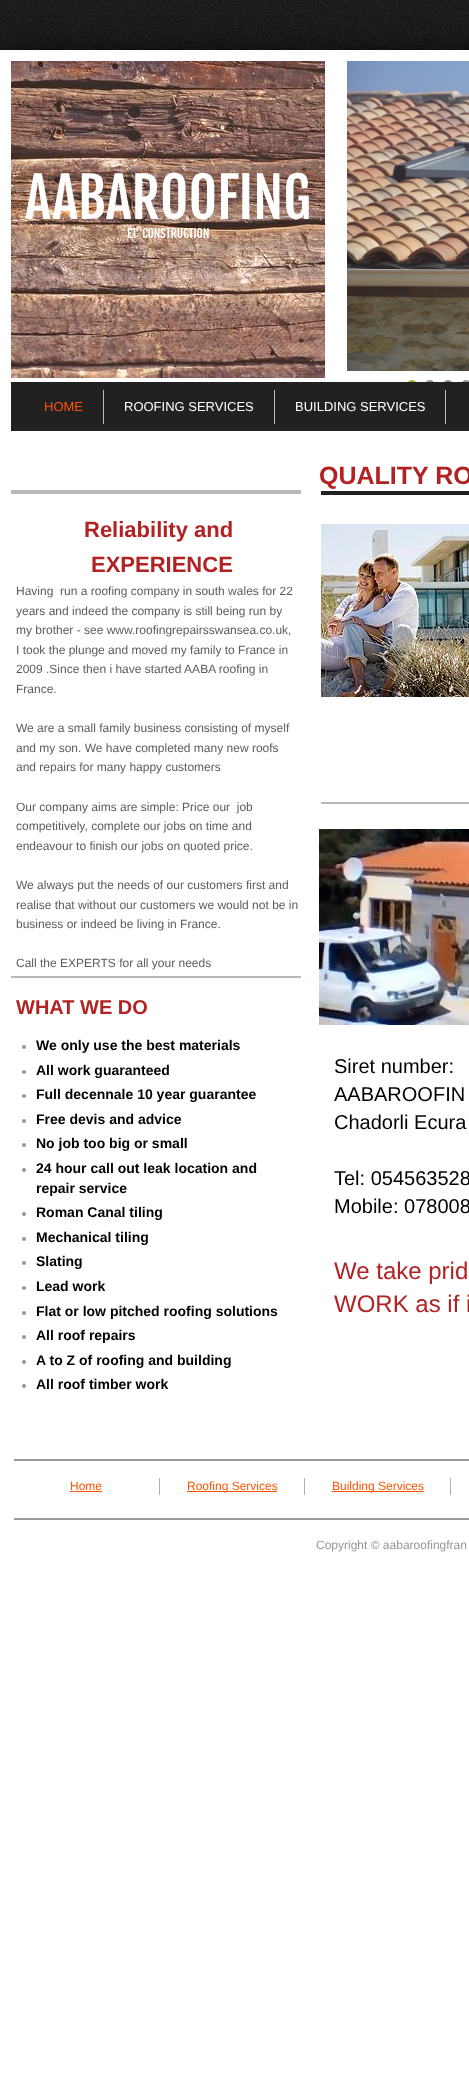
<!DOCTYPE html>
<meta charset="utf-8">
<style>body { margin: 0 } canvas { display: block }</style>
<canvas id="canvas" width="469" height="2078"></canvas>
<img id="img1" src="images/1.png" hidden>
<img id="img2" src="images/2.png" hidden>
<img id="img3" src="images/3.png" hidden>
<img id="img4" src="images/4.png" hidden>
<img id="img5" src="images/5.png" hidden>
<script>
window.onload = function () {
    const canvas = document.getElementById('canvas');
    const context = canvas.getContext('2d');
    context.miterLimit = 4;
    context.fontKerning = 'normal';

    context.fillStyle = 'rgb(255, 255, 255)';
    context.fillRect(0, 0, 469, 2078);
    context.drawImage(document.getElementById('img1'), 0, 0, 469, 50);
    context.fillStyle = 'rgba(0, 0, 0, 0.8)';
    context.filter = 'blur(15px)';
    context.beginPath();
    context.rect(1, 51, 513, 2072);
    context.fill();
    context.filter = 'none';
    context.fillStyle = 'rgb(255, 255, 255)';
    context.fillRect(0, 50, 469, 2028);
    context.drawImage(document.getElementById('img2'), 11, 61, 314, 317);
    context.drawImage(document.getElementById('img3'), 347, 61, 122, 310);
    context.fillStyle = 'rgb(152, 194, 42)';
    context.beginPath();
    context.arc(412, 385, 5, 0, 2 * Math.PI);
    context.fill();
    context.fillStyle = 'rgb(150, 150, 150)';
    context.beginPath();
    context.arc(430, 385, 5, 0, 2 * Math.PI);
    context.fill();
    context.beginPath();
    context.arc(448, 385, 5, 0, 2 * Math.PI);
    context.fill();
    context.beginPath();
    context.arc(466, 385, 5, 0, 2 * Math.PI);
    context.fill();
    context.fillStyle = 'rgb(33, 33, 33)';
    context.fillRect(11, 382, 458, 49);
    context.fillStyle = 'rgb(187, 187, 187)';
    context.fillRect(103, 390, 1, 34);
    context.fillRect(274, 390, 1, 34);
    context.fillRect(445, 390, 1, 34);
    context.fillStyle = 'rgb(184, 184, 184)';
    context.fillRect(11, 490, 290, 4);
    context.fillStyle = 'rgb(33, 33, 33)';
    context.fillRect(321, 491, 148, 4);
    context.drawImage(document.getElementById('img4'), 321, 524, 148, 173);
    context.fillStyle = 'rgb(184, 184, 184)';
    context.fillRect(321, 802, 148, 2);
    context.fillRect(11, 976, 290, 2);
    context.drawImage(document.getElementById('img5'), 319, 829, 150, 196);
    context.fillStyle = 'rgb(150, 150, 150)';
    context.beginPath();
    context.arc(24, 1047, 2, 0, 2 * Math.PI);
    context.fill();
    context.beginPath();
    context.arc(24, 1072, 2, 0, 2 * Math.PI);
    context.fill();
    context.beginPath();
    context.arc(24, 1096, 2, 0, 2 * Math.PI);
    context.fill();
    context.beginPath();
    context.arc(24, 1121, 2, 0, 2 * Math.PI);
    context.fill();
    context.beginPath();
    context.arc(24, 1145, 2, 0, 2 * Math.PI);
    context.fill();
    context.beginPath();
    context.arc(24, 1170, 2, 0, 2 * Math.PI);
    context.fill();
    context.beginPath();
    context.arc(24, 1214, 2, 0, 2 * Math.PI);
    context.fill();
    context.beginPath();
    context.arc(24, 1239, 2, 0, 2 * Math.PI);
    context.fill();
    context.beginPath();
    context.arc(24, 1263, 2, 0, 2 * Math.PI);
    context.fill();
    context.beginPath();
    context.arc(24, 1288, 2, 0, 2 * Math.PI);
    context.fill();
    context.beginPath();
    context.arc(24, 1313, 2, 0, 2 * Math.PI);
    context.fill();
    context.beginPath();
    context.arc(24, 1337, 2, 0, 2 * Math.PI);
    context.fill();
    context.beginPath();
    context.arc(24, 1362, 2, 0, 2 * Math.PI);
    context.fill();
    context.beginPath();
    context.arc(24, 1386, 2, 0, 2 * Math.PI);
    context.fill();
    context.fillStyle = 'rgb(153, 153, 153)';
    context.fillRect(14, 1459, 455, 2);
    context.fillStyle = 'rgb(174, 174, 174)';
    context.fillRect(159, 1478, 1, 17);
    context.fillStyle = 'rgb(255, 84, 0)';
    context.fillRect(70, 1491, 32, 1);
    context.fillStyle = 'rgb(174, 174, 174)';
    context.fillRect(304, 1478, 1, 17);
    context.fillStyle = 'rgb(255, 84, 0)';
    context.fillRect(187, 1491, 90, 1);
    context.fillStyle = 'rgb(174, 174, 174)';
    context.fillRect(450, 1478, 1, 17);
    context.fillStyle = 'rgb(255, 84, 0)';
    context.fillRect(332, 1491, 92, 1);
    context.fillStyle = 'rgb(153, 153, 153)';
    context.fillRect(14, 1518, 455, 2);
    context.font = '55px Fjalla One';
    context.fillStyle = 'rgb(255, 255, 255)';
    context.fillText('AABAROOFING', 25, 219);
    context.font = '12px Fjalla One';
    context.fillText('ET  CONSTRUCTION', 127, 238);
    context.font = '13px Liberation Sans';
    context.fillStyle = 'rgb(255, 84, 0)';
    context.fillText('HOME', 44, 411);
    context.fillStyle = 'rgb(255, 255, 255)';
    context.fillText('ROOFING SERVICES', 124, 411);
    context.fillText('BUILDING SERVICES', 295, 411);
    context.font = 'bold 25px Liberation Sans';
    context.fillStyle = 'rgb(178, 34, 34)';
    context.fillText('QUALITY RO', 319, 484);
    context.font = 'bold 22px Liberation Sans';
    context.fillText('Reliability and', 84, 537);
    context.fillText('EXPERIENCE', 91, 572);
    context.font = '12px Liberation Sans';
    context.fillStyle = 'rgb(92, 92, 92)';
    context.fillText('Having  run a roofing company in south wales for 22', 16, 595);
    context.fillText('years and indeed the company is still being run by', 16, 615);
    context.fillText('my brother - see www.roofingrepairsswansea.co.uk,', 16, 634);
    context.fillText('I took the plunge and moved my family to France in', 16, 654);
    context.fillText('2009 .Since then i have started AABA roofing in', 16, 673);
    context.fillText('France.', 16, 693);
    context.fillText('We are a small family business consisting of myself', 16, 732);
    context.fillText('and my son. We have completed many new roofs', 16, 752);
    context.fillText('and repairs for many happy customers', 16, 771);
    context.fillText('Our company aims are simple: Price our  job', 16, 811);
    context.fillText('competitively, complete our jobs on time and', 16, 830);
    context.fillText('endeavour to finish our jobs on quoted price.', 16, 850);
    context.fillText('We always put the needs of our customers first and', 16, 889);
    context.fillText('realise that without our customers we would not be in', 16, 909);
    context.fillText('business or indeed be living in France.', 16, 928);
    context.fillText('Call the EXPERTS for all your needs', 16, 967);
    context.font = 'bold 20px Liberation Sans';
    context.fillStyle = 'rgb(178, 34, 34)';
    context.fillText('WHAT WE DO', 16, 1014);
    context.font = 'bold 14px Liberation Sans';
    context.fillStyle = 'rgb(0, 0, 0)';
    context.fillText('We only use the best materials', 36, 1050);
    context.fillText('All work guaranteed', 36, 1075);
    context.fillText('Full decennale 10 year guarantee', 36, 1099);
    context.fillText('Free devis and advice', 36, 1124);
    context.fillText('No job too big or small', 36, 1148);
    context.fillText('24 hour call out leak location and', 36, 1173);
    context.fillText('repair service', 36, 1193);
    context.fillText('Roman Canal tiling', 36, 1217);
    context.fillText('Mechanical tiling', 36, 1242);
    context.fillText('Slating', 36, 1266);
    context.fillText('Lead work', 36, 1291);
    context.fillText('Flat or low pitched roofing solutions', 36, 1316);
    context.fillText('All roof repairs', 36, 1340);
    context.fillText('A to Z of roofing and building', 36, 1365);
    context.fillText('All roof timber work', 36, 1389);
    context.font = '20px Liberation Sans';
    context.fillText('Siret number:', 334, 1073);
    context.fillText('AABAROOFIN', 334, 1101);
    context.fillText('Chadorli Ecura', 334, 1129);
    context.fillText('Tel: 054563528', 334, 1185);
    context.fillText('Mobile: 078008', 334, 1213);
    context.font = '24px Liberation Sans';
    context.fillStyle = 'rgb(178, 34, 34)';
    context.fillText('We take prid', 334, 1279);
    context.fillText('WORK as if i', 334, 1312);
    context.font = '12px Liberation Sans';
    context.fillStyle = 'rgb(255, 84, 0)';
    context.fillText('Home', 70, 1490);
    context.fillText('Roofing Services', 187, 1490);
    context.fillText('Building Services', 332, 1490);
    context.fillStyle = 'rgb(150, 150, 150)';
    context.fillText('Copyright © aabaroofingfran', 316, 1549);
};
</script>
